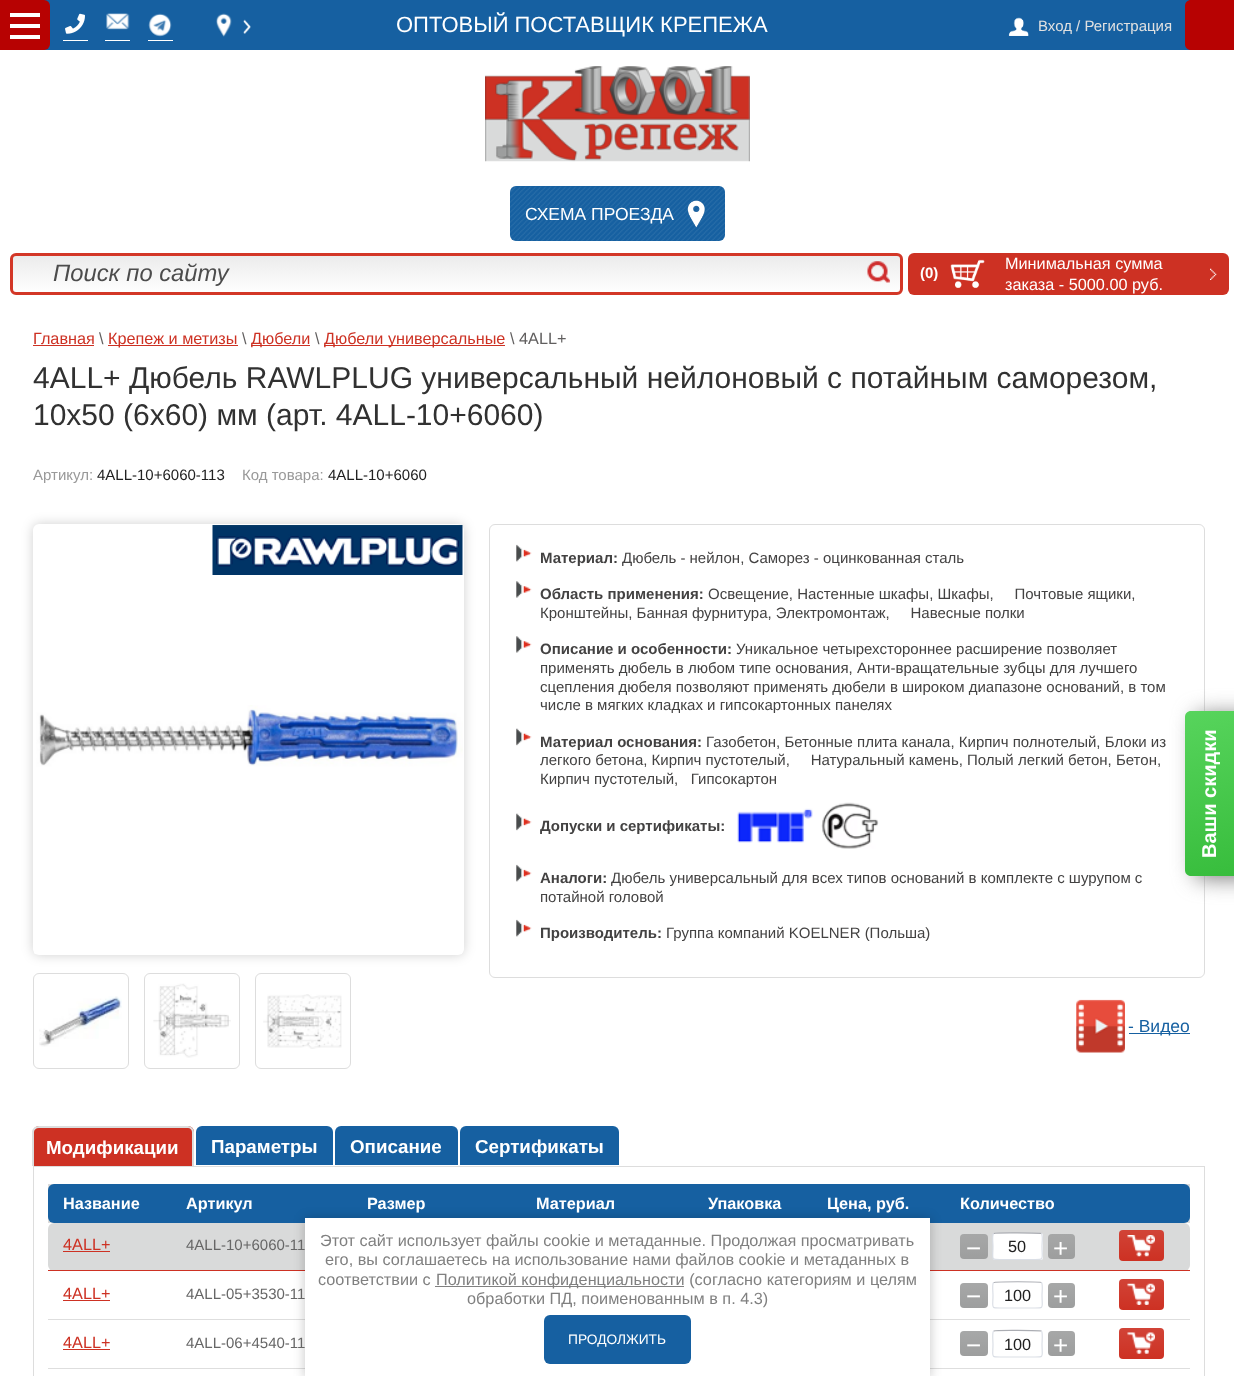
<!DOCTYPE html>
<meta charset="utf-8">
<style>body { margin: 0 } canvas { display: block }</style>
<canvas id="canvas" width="1234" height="1376"></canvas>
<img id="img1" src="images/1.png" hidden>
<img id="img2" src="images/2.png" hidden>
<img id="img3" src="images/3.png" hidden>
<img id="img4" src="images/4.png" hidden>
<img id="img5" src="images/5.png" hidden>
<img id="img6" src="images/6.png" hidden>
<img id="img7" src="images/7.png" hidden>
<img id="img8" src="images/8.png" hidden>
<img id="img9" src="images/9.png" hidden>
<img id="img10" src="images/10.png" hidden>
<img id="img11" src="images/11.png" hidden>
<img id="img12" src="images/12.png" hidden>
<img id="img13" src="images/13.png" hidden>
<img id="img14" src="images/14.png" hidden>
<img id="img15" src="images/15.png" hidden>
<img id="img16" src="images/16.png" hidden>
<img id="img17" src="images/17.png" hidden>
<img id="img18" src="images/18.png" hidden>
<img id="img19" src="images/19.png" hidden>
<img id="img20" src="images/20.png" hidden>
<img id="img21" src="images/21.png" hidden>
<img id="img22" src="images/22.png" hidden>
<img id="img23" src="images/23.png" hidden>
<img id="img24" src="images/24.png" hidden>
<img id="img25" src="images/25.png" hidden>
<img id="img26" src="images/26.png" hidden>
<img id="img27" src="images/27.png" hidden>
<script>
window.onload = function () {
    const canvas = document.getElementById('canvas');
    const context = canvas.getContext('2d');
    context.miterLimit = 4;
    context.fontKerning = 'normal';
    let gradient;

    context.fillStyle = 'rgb(255, 255, 255)';
    context.fillRect(0, 0, 1234, 1376);
    context.fillStyle = 'rgb(22, 96, 161)';
    context.fillRect(44, 0, 1147, 50);
    context.fillStyle = 'rgb(183, 2, 2)';
    context.beginPath();
    context.roundRect(0, 0, 50, 50, [0, 6, 6, 0]);
    context.fill();
    context.fillStyle = 'rgb(255, 255, 255)';
    context.fillRect(10, 13, 30, 4);
    context.fillRect(10, 35, 30, 4);
    context.fillRect(10, 24, 30, 4);
    context.fillRect(63, 40, 25, 1);
    context.drawImage(document.getElementById('img1'), 65, 13, 20, 21);
    context.fillRect(105, 40, 25, 1);
    context.drawImage(document.getElementById('img2'), 106, 13, 24, 17);
    context.fillRect(148, 40, 25, 1);
    context.drawImage(document.getElementById('img3'), 148, 13, 24, 24);
    context.drawImage(document.getElementById('img4'), 216, 13, 16, 24);
    context.drawImage(document.getElementById('img5'), 243, 19, 8, 15);
    context.drawImage(document.getElementById('img6'), 1008, 17, 21, 19);
    context.fillStyle = 'rgb(183, 2, 2)';
    context.beginPath();
    context.moveTo(1191, 0);
    context.lineTo(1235, 0);
    context.lineTo(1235, 50);
    context.lineTo(1191, 50);
    context.bezierCurveTo(1187.5, 50, 1185, 47.5, 1185, 44);
    context.lineTo(1185, 6);
    context.bezierCurveTo(1185, 2.5, 1187.5, 0, 1191, 0);
    context.closePath();
    context.fill();
    context.drawImage(document.getElementById('img7'), 485, 66, 265, 96);
    context.fillStyle = 'rgb(22, 96, 161)';
    context.beginPath();
    context.roundRect(510, 186, 215, 55, 6);
    context.fill();
    context.drawImage(document.getElementById('img8'), 510, 186, 215, 55);
    context.drawImage(document.getElementById('img9'), 687, 200, 18, 28);
    context.save();
    context.beginPath();
    context.roundRect(10, 253, 893, 42, 6);
    context.clip();
    gradient = context.createLinearGradient(456, 255, 456, 293);
    gradient.addColorStop(0, 'rgb(235, 235, 235)');
    gradient.addColorStop(1, 'rgb(255, 255, 255)');
    context.fillStyle = gradient;
    context.fillRect(10, 255, 893, 38);
    context.restore();
    context.beginPath();
    context.roundRect(11.5, 254.5, 890, 39, 4.5);
    context.strokeStyle = 'rgb(211, 55, 39)';
    context.lineWidth = 3;
    context.stroke();
    context.drawImage(document.getElementById('img10'), 867, 261, 23, 22);
    context.fillStyle = 'rgb(205, 49, 35)';
    context.beginPath();
    context.roundRect(908, 253, 321, 42, 6);
    context.fill();
    context.drawImage(document.getElementById('img11'), 1210, 268, 7, 12);
    context.drawImage(document.getElementById('img12'), 950, 259, 35, 29);
    context.fillRect(33, 345, 61, 1);
    context.fillRect(108, 345, 130, 1);
    context.fillRect(251, 345, 59, 1);
    context.fillRect(324, 345, 181, 1);
    context.fillStyle = 'rgba(0, 0, 0, 0.19)';
    context.filter = 'blur(6px)';
    context.beginPath();
    context.roundRect(33, 524, 431, 431, 6);
    context.fill();
    context.filter = 'none';
    context.fillStyle = 'rgb(255, 255, 255)';
    context.beginPath();
    context.roundRect(33, 524, 431, 431, 6);
    context.fill();
    context.drawImage(document.getElementById('img13'), 212, 525, 251, 50);
    context.drawImage(document.getElementById('img14'), 34, 705, 429, 249);
    context.beginPath();
    context.roundRect(33.5, 973.5, 95, 95, 5.5);
    context.strokeStyle = 'rgb(221, 221, 221)';
    context.lineWidth = 1;
    context.stroke();
    context.drawImage(document.getElementById('img15'), 39, 996, 83, 51);
    context.beginPath();
    context.roundRect(144.5, 973.5, 95, 95, 5.5);
    context.stroke();
    context.drawImage(document.getElementById('img16'), 153, 983, 78, 75);
    context.beginPath();
    context.roundRect(255.5, 973.5, 95, 95, 5.5);
    context.stroke();
    context.drawImage(document.getElementById('img17'), 263, 994, 79, 55);
    context.beginPath();
    context.roundRect(489.5, 524.5, 715, 453, 5.5);
    context.stroke();
    context.drawImage(document.getElementById('img18'), 516, 544, 16, 18);
    context.drawImage(document.getElementById('img19'), 516, 581, 16, 17);
    context.drawImage(document.getElementById('img20'), 516, 636, 16, 17);
    context.drawImage(document.getElementById('img21'), 516, 728, 16, 18);
    context.drawImage(document.getElementById('img21'), 516, 813, 16, 18);
    context.drawImage(document.getElementById('img22'), 737, 808, 76, 35);
    context.drawImage(document.getElementById('img23'), 821, 802, 58, 47);
    context.drawImage(document.getElementById('img18'), 516, 864, 16, 18);
    context.drawImage(document.getElementById('img18'), 516, 919, 16, 18);
    context.drawImage(document.getElementById('img24'), 1076, 999, 49, 54);
    context.fillStyle = 'rgb(22, 96, 161)';
    context.fillRect(1129, 1033, 61, 1);
    context.fillStyle = 'rgb(205, 49, 35)';
    context.beginPath();
    context.roundRect(33, 1126, 161, 40, [6, 6, 0, 0]);
    context.fill();
    context.fillStyle = 'rgb(221, 221, 221)';
    context.beginPath();
    context.moveTo(39, 1126);
    context.lineTo(188, 1126);
    context.bezierCurveTo(191, 1126, 194, 1129, 194, 1132);
    context.lineTo(194, 1166);
    context.lineTo(32, 1166);
    context.lineTo(32, 1132);
    context.bezierCurveTo(32, 1129, 35, 1126, 39, 1126);
    context.closePath();
    context.moveTo(39, 1128);
    context.lineTo(188, 1128);
    context.bezierCurveTo(190, 1128, 192, 1130, 192, 1132);
    context.lineTo(192, 1166);
    context.lineTo(34, 1166);
    context.lineTo(34, 1132);
    context.bezierCurveTo(34, 1130, 36, 1128, 39, 1128);
    context.closePath();
    context.fill('evenodd');
    context.fillStyle = 'rgb(22, 96, 161)';
    context.beginPath();
    context.roundRect(196, 1126, 137, 39, [6, 6, 0, 0]);
    context.fill();
    context.beginPath();
    context.roundRect(335, 1126, 123, 39, [6, 6, 0, 0]);
    context.fill();
    context.beginPath();
    context.roundRect(460, 1126, 159, 39, [6, 6, 0, 0]);
    context.fill();
    context.strokeRect(33.5, 1166.5, 1171, 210);
    context.fillStyle = 'rgb(220, 220, 220)';
    context.fillRect(48, 1184, 1142, 39);
    context.fillStyle = 'rgb(22, 96, 161)';
    context.beginPath();
    context.roundRect(48, 1184, 122, 39, [6, 0, 0, 6]);
    context.fill();
    context.fillRect(170, 1184, 183, 39);
    context.fillRect(353, 1184, 460, 34);
    context.fillRect(813, 1184, 291, 39);
    context.beginPath();
    context.roundRect(1104, 1184, 86, 39, [0, 6, 6, 0]);
    context.fill();
    context.fillStyle = 'rgb(217, 218, 218)';
    context.beginPath();
    context.roundRect(48, 1223, 1142, 48, 6);
    context.fill();
    context.fillStyle = 'rgb(205, 49, 35)';
    context.fillRect(48, 1270, 257, 1);
    context.fillRect(63, 1251, 47, 1);
    context.fillStyle = 'rgb(157, 158, 158)';
    context.beginPath();
    context.roundRect(960, 1234, 28, 25, 4);
    context.fill();
    gradient = context.createLinearGradient(974, 1259, 974, 1234);
    gradient.addColorStop(0, 'rgba(255, 255, 255, 0)');
    gradient.addColorStop(1, 'rgba(255, 255, 255, 0.1)');
    context.fillStyle = gradient;
    context.beginPath();
    context.roundRect(960, 1234, 28, 25, 4);
    context.fill();
    context.fillStyle = 'rgb(255, 255, 255)';
    context.beginPath();
    context.roundRect(993, 1233, 50, 27, 2.5);
    context.fill();
    context.beginPath();
    context.moveTo(993.5, 1233.5);
    context.lineTo(994, 1233.5);
    context.bezierCurveTo(995, 1232.5, 1040.5, 1233, 1041.5, 1233.5);
    context.strokeStyle = 'rgb(171, 173, 179)';
    context.lineWidth = 1.2;
    context.stroke();
    context.beginPath();
    context.moveTo(1041.5, 1233.5);
    context.bezierCurveTo(1043, 1235.5, 1042, 1244, 1042, 1246);
    context.bezierCurveTo(1042, 1260.5, 1045, 1259.5, 1032.5, 1259.5);
    context.lineTo(1002.5, 1259.5);
    context.bezierCurveTo(990, 1259.5, 993, 1260.5, 993, 1246);
    context.bezierCurveTo(993, 1244, 992, 1235.5, 993.5, 1233.5);
    context.strokeStyle = 'rgb(219, 223, 230)';
    context.stroke();
    context.fillStyle = 'rgb(157, 158, 158)';
    context.beginPath();
    context.roundRect(1048, 1234, 27, 25, 4);
    context.fill();
    gradient = context.createLinearGradient(1061, 1259, 1061, 1234);
    gradient.addColorStop(0, 'rgba(255, 255, 255, 0)');
    gradient.addColorStop(1, 'rgba(255, 255, 255, 0.1)');
    context.fillStyle = gradient;
    context.beginPath();
    context.roundRect(1048, 1234, 27, 25, 4);
    context.fill();
    context.fillStyle = 'rgb(205, 49, 35)';
    context.beginPath();
    context.roundRect(1119, 1230, 45, 31, 4);
    context.fill();
    gradient = context.createLinearGradient(1141, 1261, 1141, 1230);
    gradient.addColorStop(0, 'rgba(255, 255, 255, 0)');
    gradient.addColorStop(1, 'rgba(255, 255, 255, 0.09)');
    context.fillStyle = gradient;
    context.beginPath();
    context.roundRect(1119, 1230, 45, 31, 4);
    context.fill();
    context.drawImage(document.getElementById('img25'), 1127, 1235, 28, 22);
    context.fillStyle = 'rgb(205, 49, 35)';
    context.fillRect(930, 1270, 260, 1);
    context.fillStyle = 'rgb(222, 222, 222)';
    context.fillRect(48, 1319, 257, 1);
    context.fillStyle = 'rgb(205, 49, 35)';
    context.fillRect(63, 1300, 47, 1);
    context.fillStyle = 'rgb(157, 158, 158)';
    context.beginPath();
    context.roundRect(960, 1283, 28, 25, 4);
    context.fill();
    gradient = context.createLinearGradient(974, 1308, 974, 1283);
    gradient.addColorStop(0, 'rgba(255, 255, 255, 0)');
    gradient.addColorStop(1, 'rgba(255, 255, 255, 0.1)');
    context.fillStyle = gradient;
    context.beginPath();
    context.roundRect(960, 1283, 28, 25, 4);
    context.fill();
    context.beginPath();
    context.moveTo(993.5, 1282.5);
    context.lineTo(994, 1282.5);
    context.bezierCurveTo(995, 1281.5, 1040.5, 1281.5, 1041.5, 1282.5);
    context.strokeStyle = 'rgb(171, 173, 179)';
    context.stroke();
    context.beginPath();
    context.moveTo(1041.5, 1282.5);
    context.bezierCurveTo(1043, 1284, 1042, 1292.5, 1042, 1295);
    context.bezierCurveTo(1042, 1309, 1045, 1308, 1032.5, 1308);
    context.lineTo(1002.5, 1308);
    context.bezierCurveTo(990, 1308, 993, 1309, 993, 1295);
    context.bezierCurveTo(993, 1292.5, 992, 1284, 993.5, 1282.5);
    context.strokeStyle = 'rgb(219, 223, 230)';
    context.stroke();
    context.fillStyle = 'rgb(157, 158, 158)';
    context.beginPath();
    context.roundRect(1048, 1283, 27, 25, 4);
    context.fill();
    gradient = context.createLinearGradient(1061, 1308, 1061, 1283);
    gradient.addColorStop(0, 'rgba(255, 255, 255, 0)');
    gradient.addColorStop(1, 'rgba(255, 255, 255, 0.1)');
    context.fillStyle = gradient;
    context.beginPath();
    context.roundRect(1048, 1283, 27, 25, 4);
    context.fill();
    context.fillStyle = 'rgb(205, 49, 35)';
    context.beginPath();
    context.roundRect(1119, 1279, 45, 31, 4);
    context.fill();
    gradient = context.createLinearGradient(1141, 1310, 1141, 1279);
    gradient.addColorStop(0, 'rgba(255, 255, 255, 0)');
    gradient.addColorStop(1, 'rgba(255, 255, 255, 0.09)');
    context.fillStyle = gradient;
    context.beginPath();
    context.roundRect(1119, 1279, 45, 31, 4);
    context.fill();
    context.drawImage(document.getElementById('img26'), 1127, 1283, 28, 22);
    context.fillStyle = 'rgb(222, 222, 222)';
    context.fillRect(930, 1319, 260, 1);
    context.fillRect(48, 1368, 257, 1);
    context.fillStyle = 'rgb(205, 49, 35)';
    context.fillRect(63, 1349, 47, 1);
    context.fillStyle = 'rgb(157, 158, 158)';
    context.beginPath();
    context.roundRect(960, 1331, 28, 25, 4);
    context.fill();
    gradient = context.createLinearGradient(974, 1356, 974, 1331);
    gradient.addColorStop(0, 'rgba(255, 255, 255, 0)');
    gradient.addColorStop(1, 'rgba(255, 255, 255, 0.1)');
    context.fillStyle = gradient;
    context.beginPath();
    context.roundRect(960, 1331, 28, 25, 4);
    context.fill();
    context.beginPath();
    context.moveTo(993.5, 1331);
    context.lineTo(994, 1331);
    context.bezierCurveTo(995, 1330, 1040.5, 1330.5, 1041.5, 1331);
    context.strokeStyle = 'rgb(171, 173, 179)';
    context.stroke();
    context.beginPath();
    context.moveTo(1041.5, 1331);
    context.bezierCurveTo(1043, 1333, 1042, 1341.5, 1042, 1344);
    context.bezierCurveTo(1042, 1358, 1045, 1357, 1032.5, 1357);
    context.lineTo(1002.5, 1357);
    context.bezierCurveTo(990, 1357, 993, 1358, 993, 1344);
    context.bezierCurveTo(993, 1341.5, 992, 1333, 993.5, 1331);
    context.strokeStyle = 'rgb(219, 223, 230)';
    context.stroke();
    context.fillStyle = 'rgb(157, 158, 158)';
    context.beginPath();
    context.roundRect(1048, 1331, 27, 25, 4);
    context.fill();
    gradient = context.createLinearGradient(1061, 1356, 1061, 1331);
    gradient.addColorStop(0, 'rgba(255, 255, 255, 0)');
    gradient.addColorStop(1, 'rgba(255, 255, 255, 0.1)');
    context.fillStyle = gradient;
    context.beginPath();
    context.roundRect(1048, 1331, 27, 25, 4);
    context.fill();
    context.fillStyle = 'rgb(205, 49, 35)';
    context.beginPath();
    context.roundRect(1119, 1328, 45, 31, 4);
    context.fill();
    gradient = context.createLinearGradient(1141, 1359, 1141, 1328);
    gradient.addColorStop(0, 'rgba(255, 255, 255, 0)');
    gradient.addColorStop(1, 'rgba(255, 255, 255, 0.09)');
    context.fillStyle = gradient;
    context.beginPath();
    context.roundRect(1119, 1328, 45, 31, 4);
    context.fill();
    context.drawImage(document.getElementById('img27'), 1127, 1332, 28, 22);
    context.fillStyle = 'rgb(222, 222, 222)';
    context.fillRect(930, 1368, 260, 1);
    context.fillStyle = 'rgb(128, 128, 128)';
    context.filter = 'blur(10.5px)';
    context.beginPath();
    context.roundRect(1195, 714, 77, 165, 6);
    context.fill();
    context.filter = 'none';
    gradient = context.createLinearGradient(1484, 638, 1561, 949);
    gradient.addColorStop(0, 'rgb(87, 212, 92)');
    gradient.addColorStop(1, 'rgb(28, 169, 33)');
    context.fillStyle = gradient;
    context.beginPath();
    context.moveTo(1191, 711);
    context.lineTo(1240, 711);
    context.lineTo(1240, 876);
    context.lineTo(1191, 876);
    context.bezierCurveTo(1187.5, 876, 1185, 873.5, 1185, 870);
    context.lineTo(1185, 717);
    context.bezierCurveTo(1185, 713.5, 1187.5, 711, 1191, 711);
    context.closePath();
    context.fill();
    context.fillStyle = 'rgba(0, 0, 0, 0.23)';
    context.filter = 'blur(6px)';
    context.beginPath();
    context.rect(305, 1219, 625, 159);
    context.fill();
    context.filter = 'none';
    context.fillStyle = 'rgb(255, 255, 255)';
    context.fillRect(305, 1218, 625, 158);
    context.fillStyle = 'rgb(128, 128, 128)';
    context.fillRect(435, 1286, 249, 1);
    context.fillStyle = 'rgb(22, 96, 161)';
    context.beginPath();
    context.roundRect(544, 1315, 147, 49, 6);
    context.fill();
    context.font = '22px Liberation Sans';
    context.fillStyle = 'rgb(255, 255, 255)';
    context.fillText('ОПТОВЫЙ ПОСТАВЩИК КРЕПЕЖА', 396, 32);
    context.font = '15px Liberation Sans';
    context.fillStyle = 'rgb(225, 225, 225)';
    context.fillText('Вход / Регистрация', 1038, 31);
    context.font = '17.5px Liberation Sans';
    context.fillStyle = 'rgb(255, 255, 255)';
    context.fillText('СХЕМА ПРОЕЗДА', 525, 220);
    context.font = 'italic 23.75px Liberation Sans';
    context.fillStyle = 'rgb(76, 76, 76)';
    context.fillText('Поиск по сайту', 53, 281);
    context.font = 'bold 15px Liberation Sans';
    context.fillStyle = 'rgb(255, 255, 255)';
    context.fillText('(0)', 920, 278);
    context.font = '16.25px Liberation Sans';
    context.fillText('Минимальная сумма', 1005, 269);
    context.fillText('заказа - 5000.00 руб.', 1005, 290);
    context.fillStyle = 'rgb(205, 49, 35)';
    context.fillText('Главная', 33, 344);
    context.fillStyle = 'rgb(97, 95, 95)';
    context.fillText('\\', 99, 344);
    context.fillStyle = 'rgb(205, 49, 35)';
    context.fillText('Крепеж и метизы', 108, 344);
    context.fillStyle = 'rgb(97, 95, 95)';
    context.fillText('\\', 242, 344);
    context.fillStyle = 'rgb(205, 49, 35)';
    context.fillText('Дюбели', 251, 344);
    context.fillStyle = 'rgb(97, 95, 95)';
    context.fillText('\\', 315, 344);
    context.fillStyle = 'rgb(205, 49, 35)';
    context.fillText('Дюбели универсальные', 324, 344);
    context.fillStyle = 'rgb(97, 95, 95)';
    context.fillText('\\ 4ALL+', 510, 344);
    context.font = '30px Liberation Sans';
    context.fillStyle = 'rgb(49, 49, 49)';
    context.fillText('4ALL+ Дюбель RAWLPLUG универсальный нейлоновый с потайным саморезом,', 33, 388);
    context.fillText('10x50 (6x60) мм (арт. 4ALL-10+6060)', 33, 425);
    context.font = '15px Liberation Sans';
    context.fillStyle = 'rgb(153, 153, 153)';
    context.fillText('Артикул:', 33, 480);
    context.fillStyle = 'rgb(33, 33, 33)';
    context.fillText('4ALL-10+6060-113', 97, 480);
    context.fillStyle = 'rgb(153, 153, 153)';
    context.fillText('Код товара:', 242, 480);
    context.fillStyle = 'rgb(33, 33, 33)';
    context.fillText('4ALL-10+6060', 328, 480);
    context.font = 'bold 15px Liberation Sans';
    context.fillStyle = 'rgb(67, 66, 66)';
    context.fillText('Материал:', 540, 563);
    context.font = '15px Liberation Sans';
    context.fillText('Дюбель - нейлон, Саморез - оцинкованная сталь', 622, 563);
    context.font = 'bold 15px Liberation Sans';
    context.fillText('Область применения:', 540, 599);
    context.font = '15px Liberation Sans';
    context.fillText('Освещение, Настенные шкафы, Шкафы,     Почтовые ящики,', 708, 599);
    context.fillText('Кронштейны, Банная фурнитура, Электромонтаж,     Навесные полки', 540, 618);
    context.font = 'bold 15px Liberation Sans';
    context.fillText('Описание и особенности:', 540, 654);
    context.font = '15px Liberation Sans';
    context.fillText('Уникальное четырехстороннее расширение позволяет', 736, 654);
    context.fillText('применять дюбель в любом типе основания, Анти-вращательные зубцы для лучшего', 540, 673);
    context.fillText('сцепления дюбеля позволяют применять дюбели в широком диапазоне оснований, в том', 540, 692);
    context.fillText('числе в мягких кладках и гипсокартонных панелях', 540, 710);
    context.font = 'bold 15px Liberation Sans';
    context.fillText('Материал основания:', 540, 747);
    context.font = '15px Liberation Sans';
    context.fillText('Газобетон, Бетонные плита канала, Кирпич полнотелый, Блоки из', 706, 747);
    context.fillText('легкого бетона, Кирпич пустотелый,     Натуральный камень, Полый легкий бетон, Бетон,', 540, 765);
    context.fillText('Кирпич пустотелый,   Гипсокартон', 540, 784);
    context.font = 'bold 15px Liberation Sans';
    context.fillText('Допуски и сертификаты:', 540, 831);
    context.fillText('Аналоги:', 540, 883);
    context.font = '15px Liberation Sans';
    context.fillText('Дюбель универсальный для всех типов оснований в комплекте с шурупом с', 611, 883);
    context.fillText('потайной головой', 540, 902);
    context.font = 'bold 15px Liberation Sans';
    context.fillText('Производитель:', 540, 938);
    context.font = '15px Liberation Sans';
    context.fillText('Группа компаний KOELNER (Польша)', 666, 938);
    context.font = '17.5px Liberation Sans';
    context.fillStyle = 'rgb(22, 96, 161)';
    context.fillText('- Видео', 1128, 1032);
    context.font = 'bold 18.75px Liberation Sans';
    context.fillStyle = 'rgb(255, 255, 255)';
    context.fillText('Модификации', 46, 1154);
    context.fillText('Параметры', 211, 1153);
    context.fillText('Описание', 350, 1153);
    context.fillText('Сертификаты', 475, 1153);
    context.font = 'bold 16.25px Liberation Sans';
    context.fillText('Название', 63, 1209);
    context.fillText('Артикул', 186, 1209);
    context.fillText('Размер', 367, 1209);
    context.fillText('Материал', 536, 1209);
    context.fillText('Упаковка', 708, 1209);
    context.fillText('Цена, руб.', 827, 1209);
    context.fillText('Количество', 960, 1209);
    context.font = '16.25px Liberation Sans';
    context.fillStyle = 'rgb(205, 49, 35)';
    context.fillText('4ALL+', 63, 1250);
    context.font = '15px Liberation Sans';
    context.fillStyle = 'rgb(102, 102, 102)';
    context.fillText('4ALL-10+6060-11', 186, 1250);
    context.font = '26px Liberation Sans';
    context.fillStyle = 'rgb(255, 255, 255)';
    context.fillText('−', 966, 1257);
    context.font = '16.25px Liberation Sans';
    context.fillStyle = 'rgb(33, 33, 33)';
    context.fillText('50', 1008, 1252);
    context.font = '26px Liberation Sans';
    context.fillStyle = 'rgb(255, 255, 255)';
    context.fillText('+', 1053, 1257);
    context.font = '16.25px Liberation Sans';
    context.fillStyle = 'rgb(205, 49, 35)';
    context.fillText('4ALL+', 63, 1299);
    context.font = '15px Liberation Sans';
    context.fillStyle = 'rgb(102, 102, 102)';
    context.fillText('4ALL-05+3530-11', 186, 1299);
    context.font = '26px Liberation Sans';
    context.fillStyle = 'rgb(255, 255, 255)';
    context.fillText('−', 966, 1305);
    context.font = '16.25px Liberation Sans';
    context.fillStyle = 'rgb(33, 33, 33)';
    context.fillText('100', 1004, 1301);
    context.font = '26px Liberation Sans';
    context.fillStyle = 'rgb(255, 255, 255)';
    context.fillText('+', 1053, 1305);
    context.font = '16.25px Liberation Sans';
    context.fillStyle = 'rgb(205, 49, 35)';
    context.fillText('4ALL+', 63, 1348);
    context.font = '15px Liberation Sans';
    context.fillStyle = 'rgb(102, 102, 102)';
    context.fillText('4ALL-06+4540-11', 186, 1348);
    context.font = '26px Liberation Sans';
    context.fillStyle = 'rgb(255, 255, 255)';
    context.fillText('−', 966, 1354);
    context.font = '16.25px Liberation Sans';
    context.fillStyle = 'rgb(33, 33, 33)';
    context.fillText('100', 1004, 1350);
    context.font = '26px Liberation Sans';
    context.fillStyle = 'rgb(255, 255, 255)';
    context.fillText('+', 1053, 1354);
    context.font = 'bold 20px Liberation Sans';
    context.save();
    context.translate(1216, 858);
    context.rotate(-90 * Math.PI / 180);
    context.fillText('Ваши скидки', 0, 0);
    context.restore();
    context.font = '16.25px Liberation Sans';
    context.fillStyle = 'rgb(128, 128, 128)';
    context.fillText('Этот сайт использует файлы cookie и метаданные. Продолжая просматривать', 320, 1246);
    context.fillText('его, вы соглашаетесь на использование нами файлов cookie и метаданных в', 325, 1265);
    context.fillText('соответствии с', 318, 1285);
    context.fillText('Политикой конфиденциальности (согласно категориям и целям', 436, 1285);
    context.fillText('обработки ПД, поименованным в п. 4.3)', 467, 1304);
    context.font = '13.75px Liberation Sans';
    context.fillStyle = 'rgb(255, 255, 255)';
    context.fillText('ПРОДОЛЖИТЬ', 568, 1344);
};
</script>
